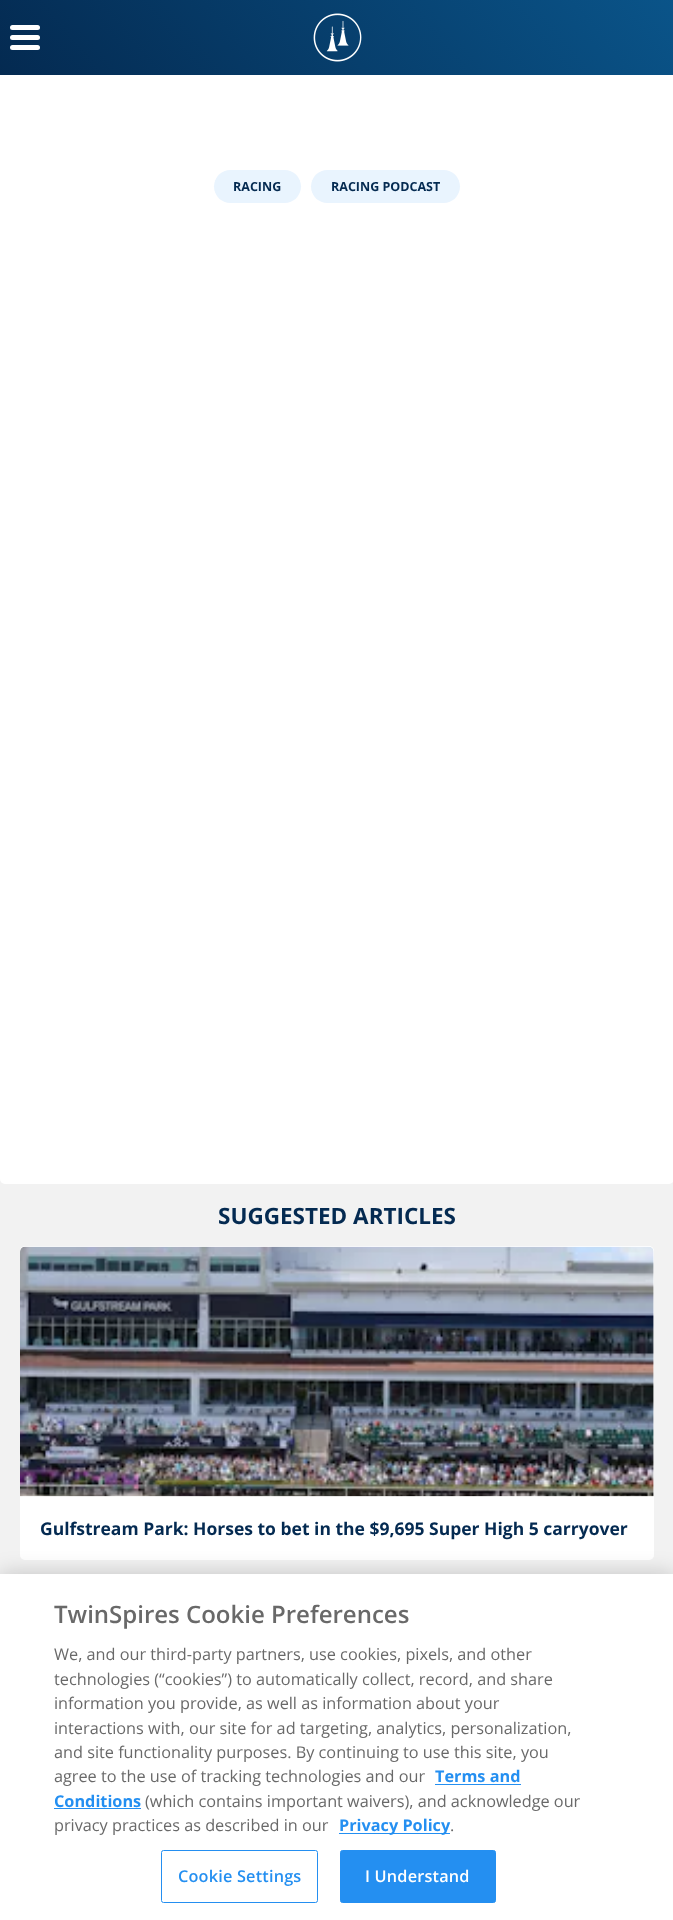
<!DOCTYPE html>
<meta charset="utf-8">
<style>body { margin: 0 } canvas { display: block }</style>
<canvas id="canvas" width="673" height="1920"></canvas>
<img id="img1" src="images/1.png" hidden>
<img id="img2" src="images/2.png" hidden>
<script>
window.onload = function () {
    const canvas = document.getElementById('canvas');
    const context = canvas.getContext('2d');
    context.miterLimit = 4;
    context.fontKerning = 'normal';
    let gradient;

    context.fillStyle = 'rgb(242, 242, 242)';
    context.fillRect(0, 0, 673, 1920);
    context.fillStyle = 'rgb(255, 255, 255)';
    context.beginPath();
    context.roundRect(0, -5, 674, 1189, 5);
    context.fill();
    gradient = context.createLinearGradient(553, -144, 121, 219);
    gradient.addColorStop(0, 'rgb(10, 84, 137)');
    gradient.addColorStop(1, 'rgb(4, 42, 81)');
    context.fillStyle = gradient;
    context.fillRect(0, 0, 673, 75);
    context.fillStyle = 'rgb(255, 255, 255)';
    context.beginPath();
    context.roundRect(10, 25, 30, 5, 2.5);
    context.fill();
    context.beginPath();
    context.roundRect(10, 35, 30, 5, 2.5);
    context.fill();
    context.beginPath();
    context.roundRect(10, 45, 30, 5, 2.5);
    context.fill();
    context.drawImage(document.getElementById('img1'), 313, 13, 49, 49);
    context.fillStyle = 'rgb(233, 244, 254)';
    context.beginPath();
    context.roundRect(214, 170, 87, 33, 16.5);
    context.fill();
    context.beginPath();
    context.roundRect(311, 170, 149, 33, 16.5);
    context.fill();
    context.fillStyle = 'rgb(255, 255, 255)';
    context.beginPath();
    context.roundRect(20, 1246, 634, 314, 5);
    context.fill();
    context.drawImage(document.getElementById('img2'), 20, 1246, 634, 251);
    context.fillStyle = 'rgba(0, 0, 0, 0.2)';
    context.filter = 'blur(11px)';
    context.beginPath();
    context.rect(0, 1574, 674, 346);
    context.fill();
    context.filter = 'none';
    context.fillStyle = 'rgb(255, 255, 255)';
    context.fillRect(0, 1574, 673, 346);
    context.fillStyle = 'rgb(36, 143, 241)';
    context.fillRect(435, 1784, 86, 1);
    context.fillRect(54, 1808, 87, 1);
    context.fillRect(339, 1833, 111, 1);
    context.beginPath();
    context.roundRect(161.5, 1850.5, 156, 52, 2);
    context.strokeStyle = 'rgb(36, 143, 241)';
    context.stroke();
    context.beginPath();
    context.roundRect(340.5, 1850.5, 155, 52, 2);
    context.fill();
    context.stroke();
    context.font = 'bold 12.5px Open Sans';
    context.fillStyle = 'rgb(4, 42, 81)';
    context.fillText('RACING', 233, 191);
    context.fillText('RACING PODCAST', 331, 191);
    context.font = 'bold 22.5px Open Sans';
    context.fillText('SUGGESTED ARTICLES', 218, 1224);
    context.font = 'bold 17.5px Open Sans';
    context.fillText('Gulfstream Park: Horses to bet in the $9,695 Super High 5 carryover', 40, 1535);
    context.font = '600 24px Open Sans';
    context.fillStyle = 'rgb(105, 105, 105)';
    context.fillText('TwinSpires Cookie Preferences', 54, 1623);
    context.font = '16.25px Open Sans';
    context.fillText('We, and our third-party partners, use cookies, pixels, and other', 54, 1660);
    context.fillText('technologies (“cookies”) to automatically collect, record, and share', 54, 1685);
    context.fillText('information you provide, as well as information about your', 54, 1709);
    context.fillText('interactions with, our site for ad targeting, analytics, personalization,', 54, 1734);
    context.fillText('and site functionality purposes. By continuing to use this site, you', 54, 1758);
    context.fillText('agree to the use of tracking technologies and our', 54, 1782);
    context.font = 'bold 16.25px Open Sans';
    context.fillStyle = 'rgb(36, 143, 241)';
    context.fillText('Terms and', 435, 1782);
    context.fillText('Conditions', 54, 1807);
    context.font = '16.25px Open Sans';
    context.fillStyle = 'rgb(105, 105, 105)';
    context.fillText('(which contains important waivers), and acknowledge our', 145, 1807);
    context.fillText('privacy practices as described in our', 54, 1831);
    context.font = 'bold 16.25px Open Sans';
    context.fillStyle = 'rgb(36, 143, 241)';
    context.fillText('Privacy Policy', 339, 1831);
    context.font = '16.25px Open Sans';
    context.fillStyle = 'rgb(105, 105, 105)';
    context.fillText('.', 450, 1831);
    context.letterSpacing = '0.2px';
    context.font = '600 16.25px Open Sans';
    context.fillStyle = 'rgb(36, 143, 241)';
    context.fillText('Cookie Settings', 178, 1882);
    context.fillStyle = 'rgb(255, 255, 255)';
    context.fillText('I Understand', 365, 1882);
};
</script>
